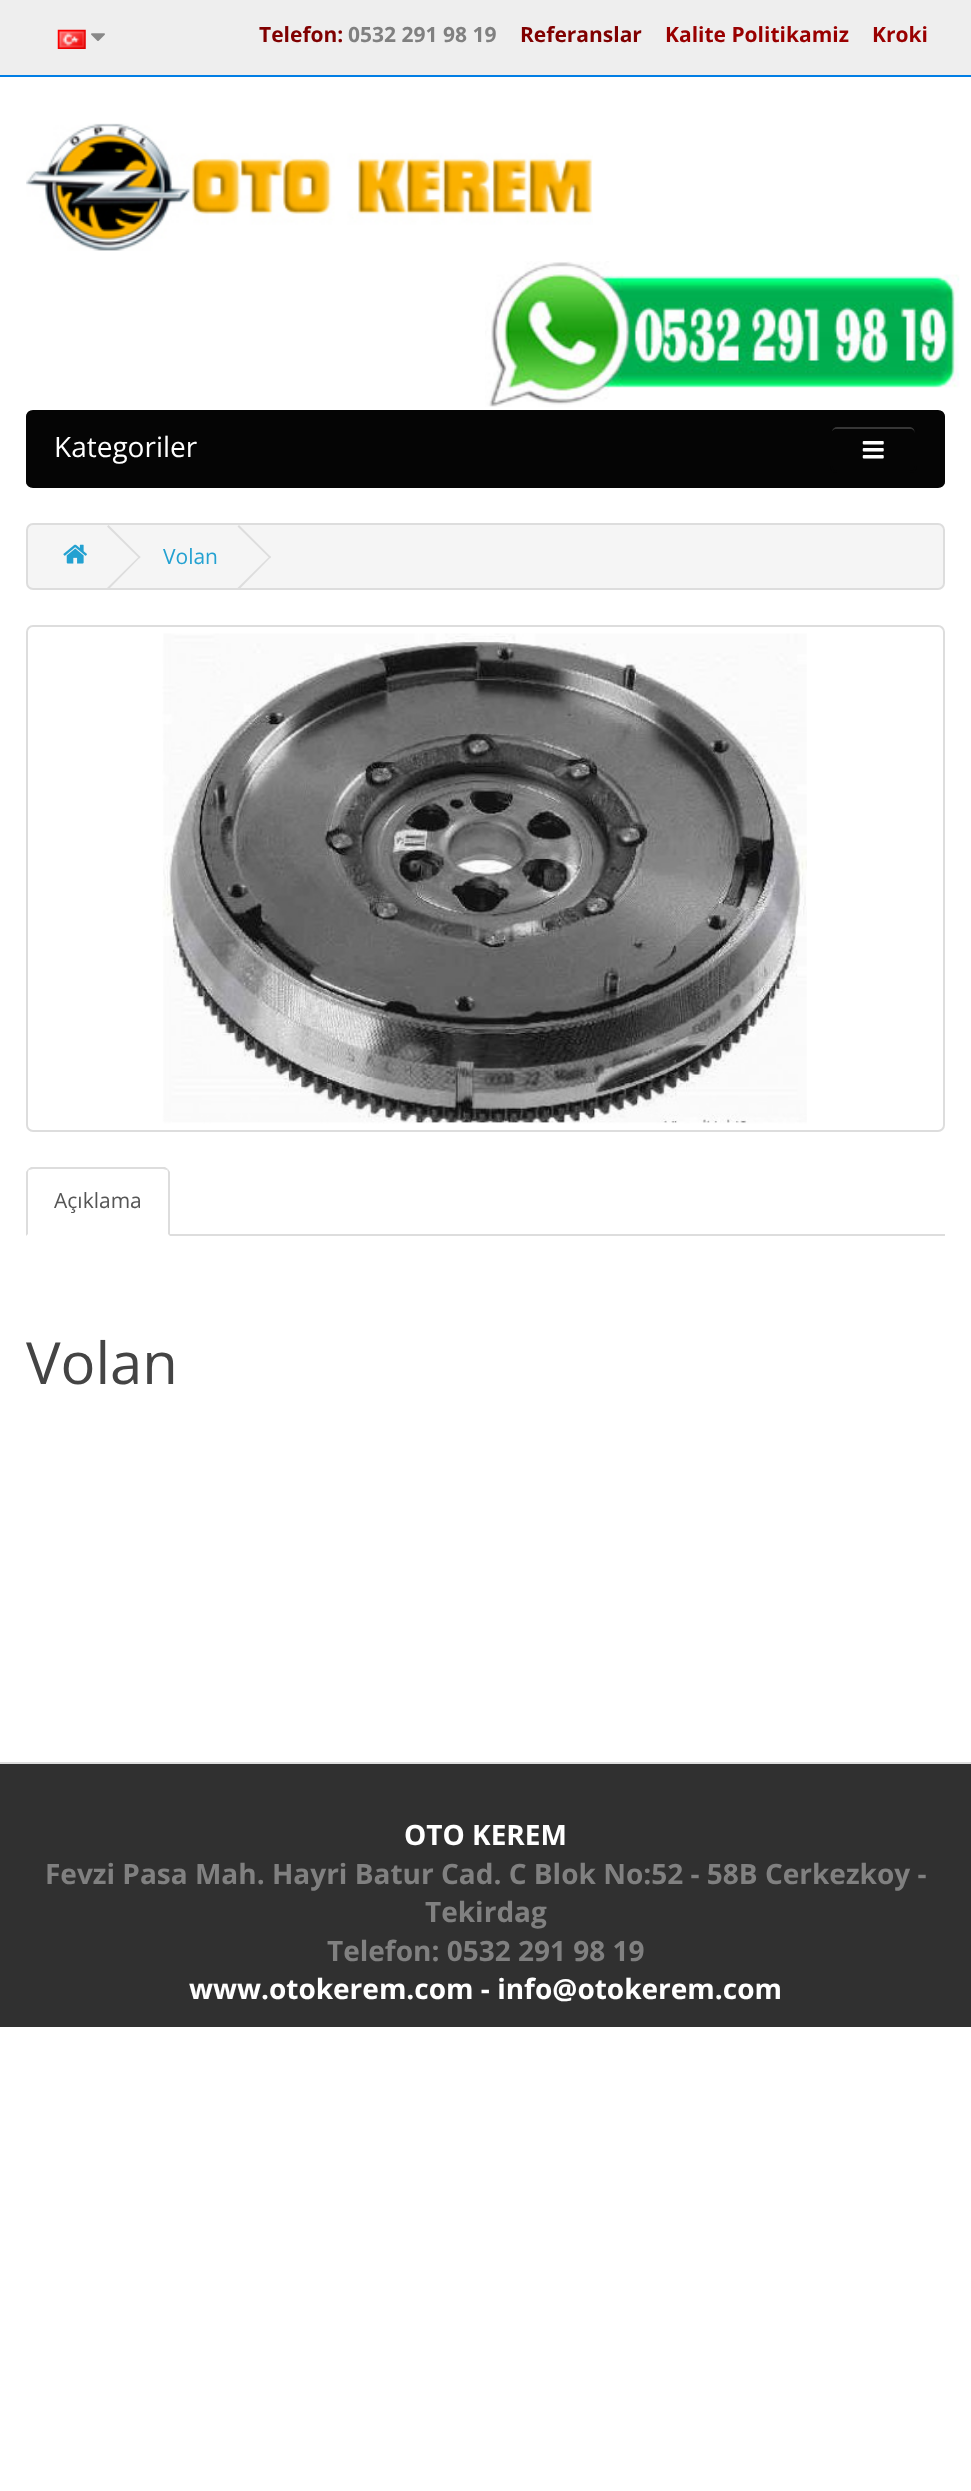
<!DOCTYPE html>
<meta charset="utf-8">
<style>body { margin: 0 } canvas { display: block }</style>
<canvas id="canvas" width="971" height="2491"></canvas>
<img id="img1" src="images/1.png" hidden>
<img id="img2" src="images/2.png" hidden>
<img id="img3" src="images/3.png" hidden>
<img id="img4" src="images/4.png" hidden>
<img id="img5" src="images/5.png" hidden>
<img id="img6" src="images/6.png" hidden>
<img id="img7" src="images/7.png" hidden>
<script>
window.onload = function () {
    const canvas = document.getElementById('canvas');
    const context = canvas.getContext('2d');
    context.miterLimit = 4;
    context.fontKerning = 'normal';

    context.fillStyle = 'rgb(255, 255, 255)';
    context.fillRect(0, 0, 971, 2491);
    context.fillStyle = 'rgb(238, 238, 238)';
    context.fillRect(0, 0, 971, 75);
    context.fillStyle = 'rgb(0, 126, 229)';
    context.fillRect(0, 75, 971, 2);
    context.drawImage(document.getElementById('img1'), 57, 29, 29, 20);
    context.drawImage(document.getElementById('img2'), 91, 33, 14, 8);
    context.drawImage(document.getElementById('img3'), 26, 123, 567, 128);
    context.drawImage(document.getElementById('img4'), 485, 261, 475, 146);
    context.save();
    context.beginPath();
    context.roundRect(26, 410, 919, 78, 7);
    context.clip();
    context.fillStyle = 'rgb(5, 5, 5)';
    context.fillRect(26, 411, 919, 76);
    context.restore();
    context.beginPath();
    context.roundRect(27, 411, 917, 76, 6);
    context.strokeStyle = 'rgb(5, 5, 5)';
    context.lineWidth = 2;
    context.stroke();
    context.fillStyle = 'rgb(55, 55, 55)';
    context.beginPath();
    context.moveTo(836, 429);
    context.lineTo(910, 429);
    context.bezierCurveTo(913, 429, 915, 431, 915, 434);
    context.bezierCurveTo(915, 424, 906, 427, 898, 427);
    context.lineTo(848, 427);
    context.bezierCurveTo(840, 427, 831, 424, 831, 434);
    context.bezierCurveTo(831, 431, 834, 429, 836, 429);
    context.closePath();
    context.fill();
    context.beginPath();
    context.roundRect(831, 426, 85, 46, 6);
    context.stroke();
    context.drawImage(document.getElementById('img5'), 862, 441, 22, 18);
    context.fillStyle = 'rgb(245, 245, 245)';
    context.beginPath();
    context.roundRect(27, 524, 917, 65, 6);
    context.fill();
    context.strokeStyle = 'rgb(221, 221, 221)';
    context.stroke();
    context.drawImage(document.getElementById('img6'), 63, 544, 24, 20);
    context.fillStyle = 'rgb(221, 221, 221)';
    context.beginPath();
    context.moveTo(107, 526.5);
    context.lineTo(108.5, 525);
    context.lineTo(140.5, 557);
    context.lineTo(139.5, 558.5);
    context.closePath();
    context.fill();
    context.beginPath();
    context.moveTo(107, 588);
    context.lineTo(139.5, 556);
    context.lineTo(140.5, 557);
    context.lineTo(108.5, 589.5);
    context.closePath();
    context.fill();
    context.beginPath();
    context.moveTo(237.5, 526.5);
    context.lineTo(239, 525);
    context.lineTo(271, 557);
    context.lineTo(270, 558.5);
    context.closePath();
    context.fill();
    context.beginPath();
    context.moveTo(237.5, 588);
    context.lineTo(270, 556);
    context.lineTo(271, 557);
    context.lineTo(239, 589.5);
    context.closePath();
    context.fill();
    context.beginPath();
    context.roundRect(27, 626, 917, 505, 6);
    context.stroke();
    context.drawImage(document.getElementById('img7'), 162, 633, 645, 491);
    context.fillRect(170, 1234, 775, 2);
    context.beginPath();
    context.moveTo(33, 1169);
    context.bezierCurveTo(32, 1169, 30, 1170, 29, 1170);
    context.lineTo(28, 1169);
    context.lineTo(31, 1167);
    context.lineTo(165, 1167);
    context.lineTo(168, 1169);
    context.lineTo(167, 1170);
    context.bezierCurveTo(166, 1170, 164, 1169, 163, 1169);
    context.closePath();
    context.fill();
    context.beginPath();
    context.moveTo(168, 1169);
    context.lineTo(170, 1172);
    context.lineTo(170, 1236);
    context.lineTo(168, 1234);
    context.lineTo(168, 1174);
    context.bezierCurveTo(168, 1172, 168, 1171, 167, 1170);
    context.closePath();
    context.fill();
    context.beginPath();
    context.moveTo(26, 1236);
    context.lineTo(26, 1172);
    context.lineTo(28, 1169);
    context.lineTo(29, 1170);
    context.bezierCurveTo(28, 1171, 28, 1172, 28, 1174);
    context.lineTo(28, 1234);
    context.closePath();
    context.fill();
    context.fillStyle = 'rgb(48, 48, 48)';
    context.fillRect(0, 1764, 971, 263);
    context.fillStyle = 'rgb(221, 221, 221)';
    context.fillRect(0, 1762, 971, 2);
    context.font = 'bold 21px Open Sans';
    context.fillStyle = 'rgb(128, 0, 0)';
    context.fillText('Telefon:', 259, 42);
    context.fillStyle = 'rgb(128, 128, 128)';
    context.fillText('0532 291 98 19', 348, 42);
    context.fillStyle = 'rgb(128, 0, 0)';
    context.fillText('Referanslar', 520, 42);
    context.fillStyle = 'rgb(153, 0, 0)';
    context.fillText('Kalite Politikamiz', 665, 42);
    context.fillText('Kroki', 872, 42);
    context.font = '28px Open Sans';
    context.fillStyle = 'rgb(255, 255, 255)';
    context.fillText('Kategoriler', 54, 457);
    context.font = '21px Open Sans';
    context.fillStyle = 'rgb(35, 161, 209)';
    context.fillText('Volan', 163, 564);
    context.fillStyle = 'rgb(85, 85, 85)';
    context.fillText('Açıklama', 54, 1208);
    context.font = '58px Open Sans';
    context.fillStyle = 'rgb(68, 68, 68)';
    context.fillText('Volan', 26, 1384);
    context.font = 'bold 28px Open Sans';
    context.fillStyle = 'rgb(255, 255, 255)';
    context.fillText('OTO KEREM', 404, 1845);
    context.fillStyle = 'rgb(128, 128, 128)';
    context.fillText('Fevzi Pasa Mah. Hayri Batur Cad. C Blok No:52 - 58B Cerkezkoy -', 45, 1884);
    context.fillText('Tekirdag', 425, 1922);
    context.fillText('Telefon: 0532 291 98 19', 327, 1961);
    context.fillStyle = 'rgb(255, 255, 255)';
    context.fillText('www.otokerem.com - info@otokerem.com', 189, 1999);
};
</script>
